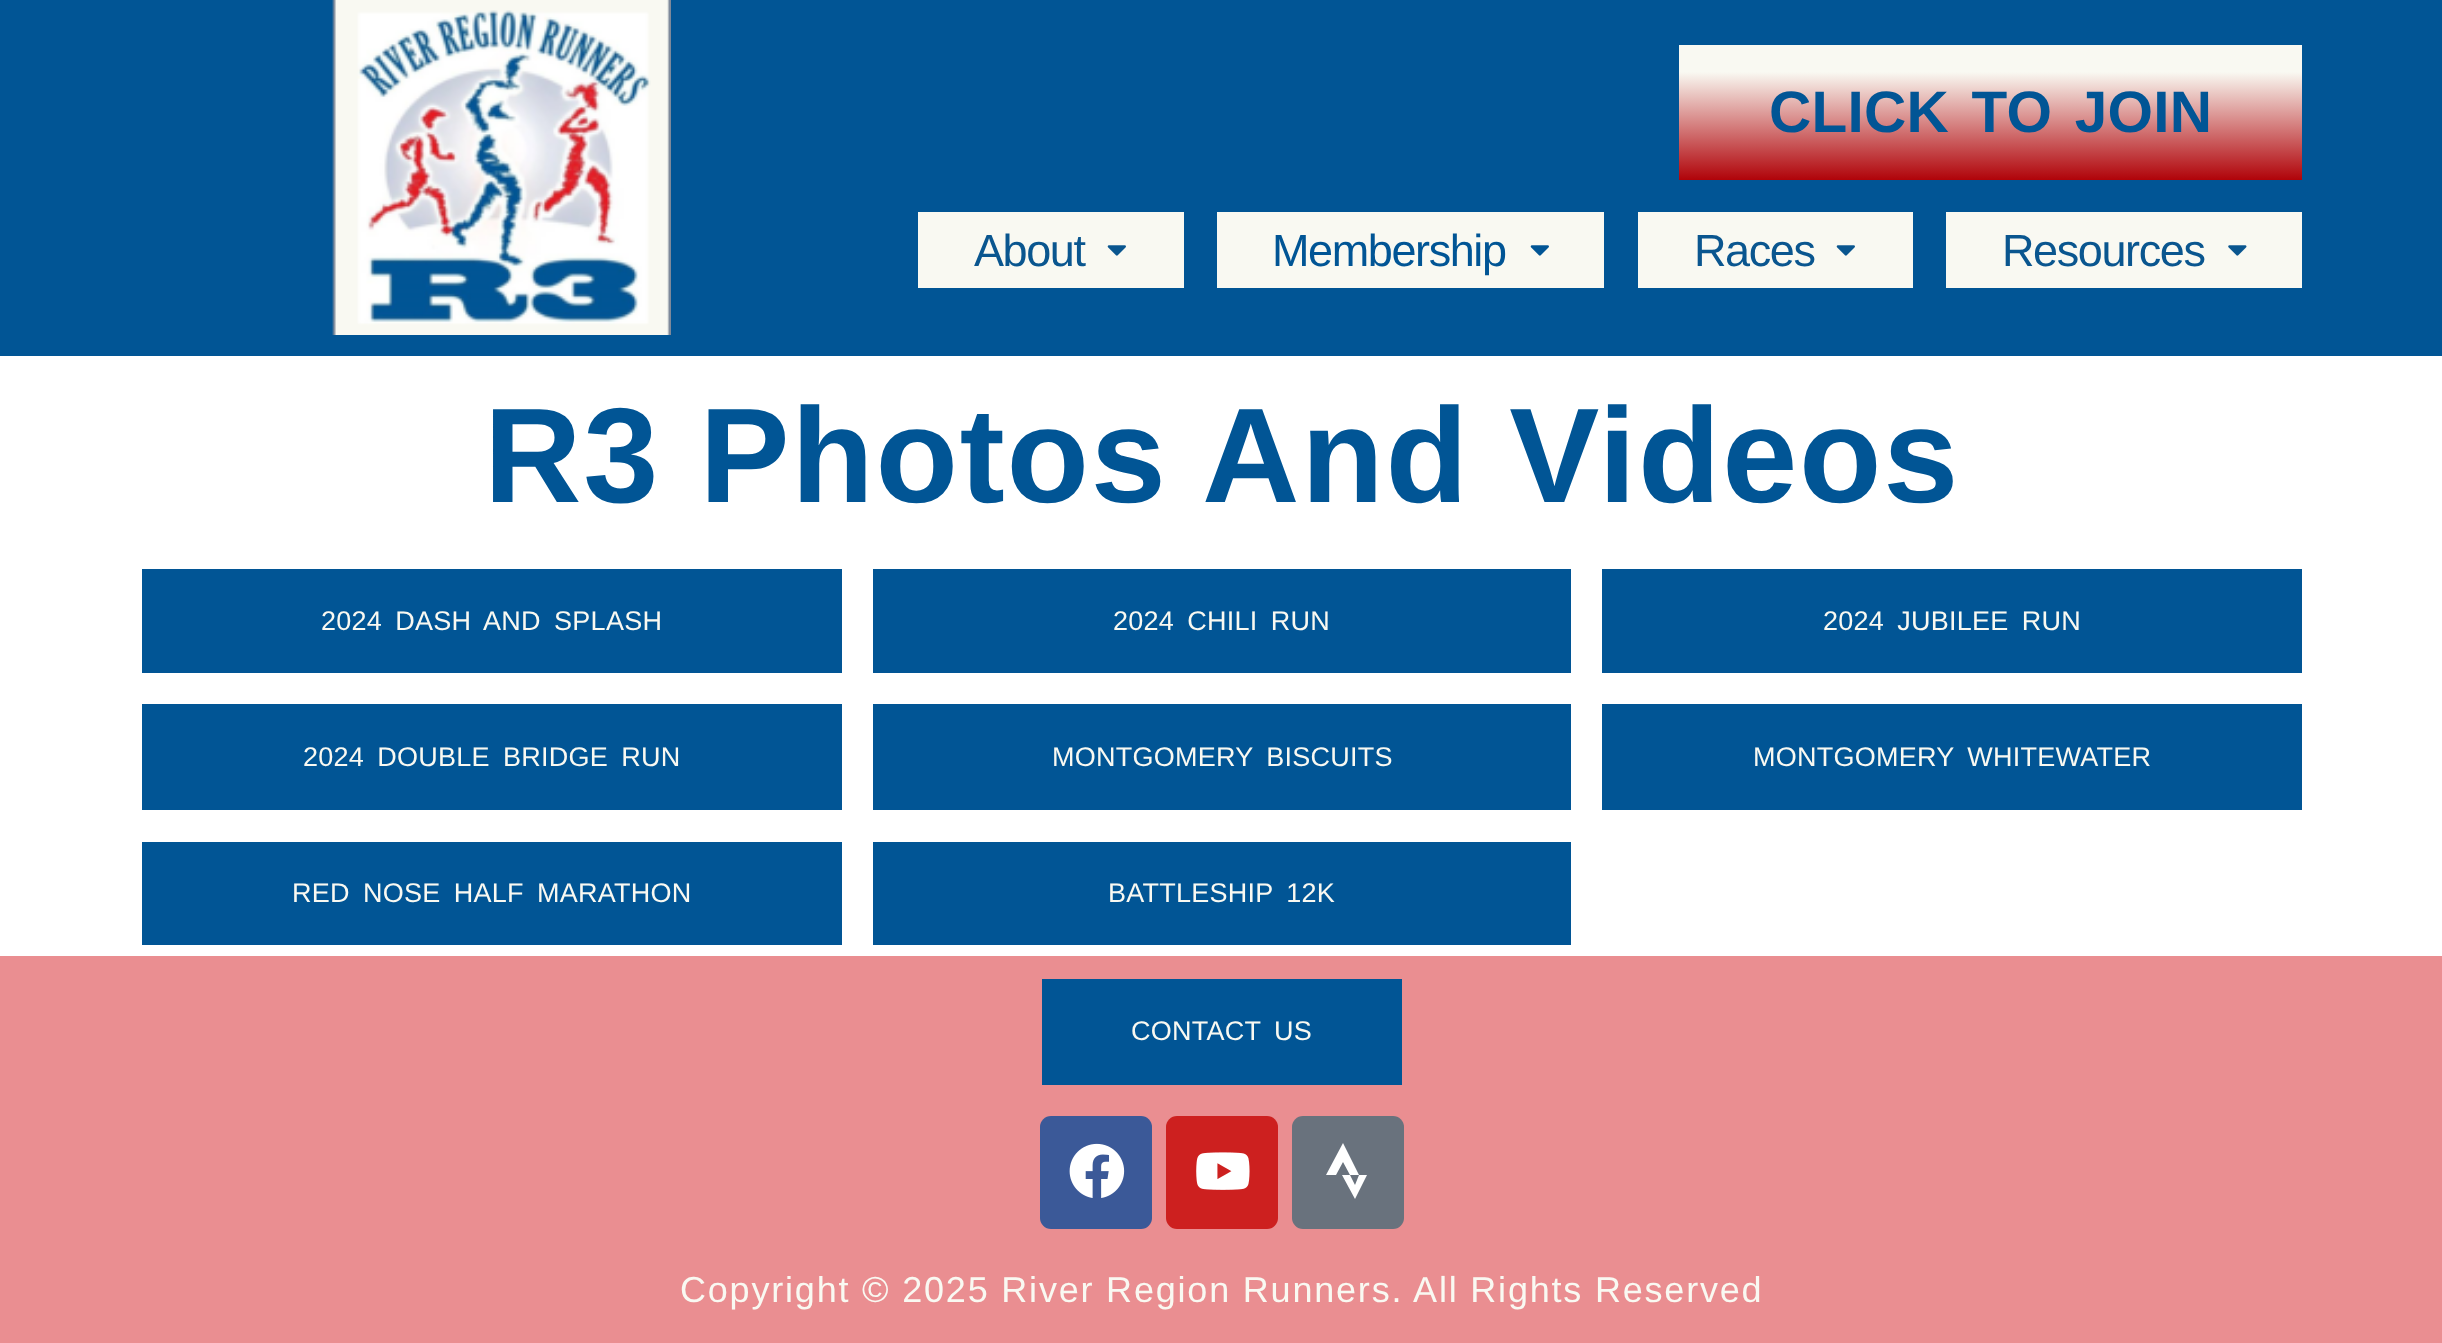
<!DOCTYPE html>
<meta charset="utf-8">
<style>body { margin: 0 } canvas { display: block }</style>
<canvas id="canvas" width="2442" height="1343"></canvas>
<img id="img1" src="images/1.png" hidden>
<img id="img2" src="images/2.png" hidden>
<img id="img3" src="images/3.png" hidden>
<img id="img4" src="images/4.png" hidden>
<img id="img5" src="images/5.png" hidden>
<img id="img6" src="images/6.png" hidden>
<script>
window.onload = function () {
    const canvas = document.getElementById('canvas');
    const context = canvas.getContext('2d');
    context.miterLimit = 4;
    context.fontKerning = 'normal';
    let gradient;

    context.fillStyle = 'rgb(255, 255, 255)';
    context.fillRect(0, 0, 2442, 1343);
    context.fillStyle = 'rgb(1, 85, 149)';
    context.fillRect(0, 0, 2442, 356);
    context.drawImage(document.getElementById('img1'), 332, 0, 339, 335);
    gradient = context.createLinearGradient(1990, 45, 1990, 180);
    gradient.addColorStop(0.2, 'rgb(249, 249, 242)');
    gradient.addColorStop(1, 'rgb(176, 3, 9)');
    context.fillStyle = gradient;
    context.fillRect(1679, 45, 623, 135);
    context.fillStyle = 'rgb(249, 249, 242)';
    context.fillRect(918, 212, 266, 76);
    context.drawImage(document.getElementById('img2'), 1107, 245, 19, 11);
    context.fillRect(1217, 212, 387, 76);
    context.drawImage(document.getElementById('img3'), 1530, 245, 19, 11);
    context.fillRect(1638, 212, 275, 76);
    context.drawImage(document.getElementById('img2'), 1836, 245, 19, 11);
    context.fillRect(1946, 212, 356, 76);
    context.drawImage(document.getElementById('img4'), 2228, 245, 19, 11);
    context.fillStyle = 'rgb(1, 85, 149)';
    context.fillRect(142, 569, 700, 104);
    context.fillRect(873, 569, 698, 104);
    context.fillRect(1602, 569, 700, 104);
    context.fillRect(142, 704, 700, 106);
    context.fillRect(873, 704, 698, 106);
    context.fillRect(1602, 704, 700, 106);
    context.fillRect(142, 842, 700, 103);
    context.fillRect(873, 842, 698, 103);
    context.fillStyle = 'rgb(234, 142, 145)';
    context.fillRect(0, 956, 2442, 387);
    context.fillStyle = 'rgb(1, 85, 149)';
    context.fillRect(1042, 979, 360, 106);
    context.fillStyle = 'rgb(59, 89, 152)';
    context.beginPath();
    context.roundRect(1040, 1116, 112, 113, 11);
    context.fill();
    context.drawImage(document.getElementById('img5'), 1069, 1143, 56, 55);
    context.fillStyle = 'rgb(205, 32, 31)';
    context.beginPath();
    context.roundRect(1166, 1116, 112, 113, 11);
    context.fill();
    context.drawImage(document.getElementById('img6'), 1196, 1152, 54, 38);
    context.fillStyle = 'rgb(105, 114, 125)';
    context.beginPath();
    context.roundRect(1292, 1116, 112, 113, 11);
    context.fill();
    context.fillStyle = 'rgb(255, 255, 255)';
    context.beginPath();
    context.moveTo(1343, 1143);
    context.lineTo(1326, 1175);
    context.lineTo(1336, 1175);
    context.lineTo(1343, 1162);
    context.lineTo(1350, 1175);
    context.lineTo(1359, 1175);
    context.closePath();
    context.moveTo(1359, 1175);
    context.lineTo(1355, 1185);
    context.lineTo(1350, 1175);
    context.lineTo(1342, 1175);
    context.lineTo(1355, 1199);
    context.lineTo(1367, 1175);
    context.closePath();
    context.fill();
    context.letterSpacing = '0.25px';
    context.wordSpacing = '6px';
    context.font = 'bold 58.5px Liberation Sans';
    context.fillStyle = 'rgb(1, 85, 149)';
    context.fillText('CLICK TO JOIN', 1769, 132);
    context.letterSpacing = '-1.4px';
    context.wordSpacing = '0px';
    context.font = '45px Liberation Sans';
    context.fillStyle = 'rgb(10, 86, 143)';
    context.fillText('About', 974, 266);
    context.fillStyle = 'rgb(1, 85, 149)';
    context.fillText('Membership', 1272, 266);
    context.fillStyle = 'rgb(10, 86, 143)';
    context.fillText('Races', 1694, 266);
    context.fillText('Resources', 2002, 266);
    context.letterSpacing = '1.8px';
    context.font = 'bold 135px Liberation Sans';
    context.fillStyle = 'rgb(1, 85, 149)';
    context.fillText('R3 Photos And Videos', 484, 502);
    context.letterSpacing = '0.25px';
    context.wordSpacing = '5.5px';
    context.font = '27px Liberation Sans';
    context.fillStyle = 'rgb(249, 249, 242)';
    context.fillText('2024 DASH AND SPLASH', 321, 630);
    context.fillText('2024 CHILI RUN', 1113, 630);
    context.fillText('2024 JUBILEE RUN', 1823, 630);
    context.fillText('2024 DOUBLE BRIDGE RUN', 303, 766);
    context.fillText('MONTGOMERY BISCUITS', 1052, 766);
    context.fillText('MONTGOMERY WHITEWATER', 1753, 766);
    context.fillText('RED NOSE HALF MARATHON', 292, 902);
    context.fillText('BATTLESHIP 12K', 1108, 902);
    context.fillText('CONTACT US', 1131, 1040);
    context.letterSpacing = '1.8px';
    context.wordSpacing = '0px';
    context.font = '36px Liberation Sans';
    context.fillText('Copyright © 2025 River Region Runners. All Rights Reserved', 680, 1302);
};
</script>
